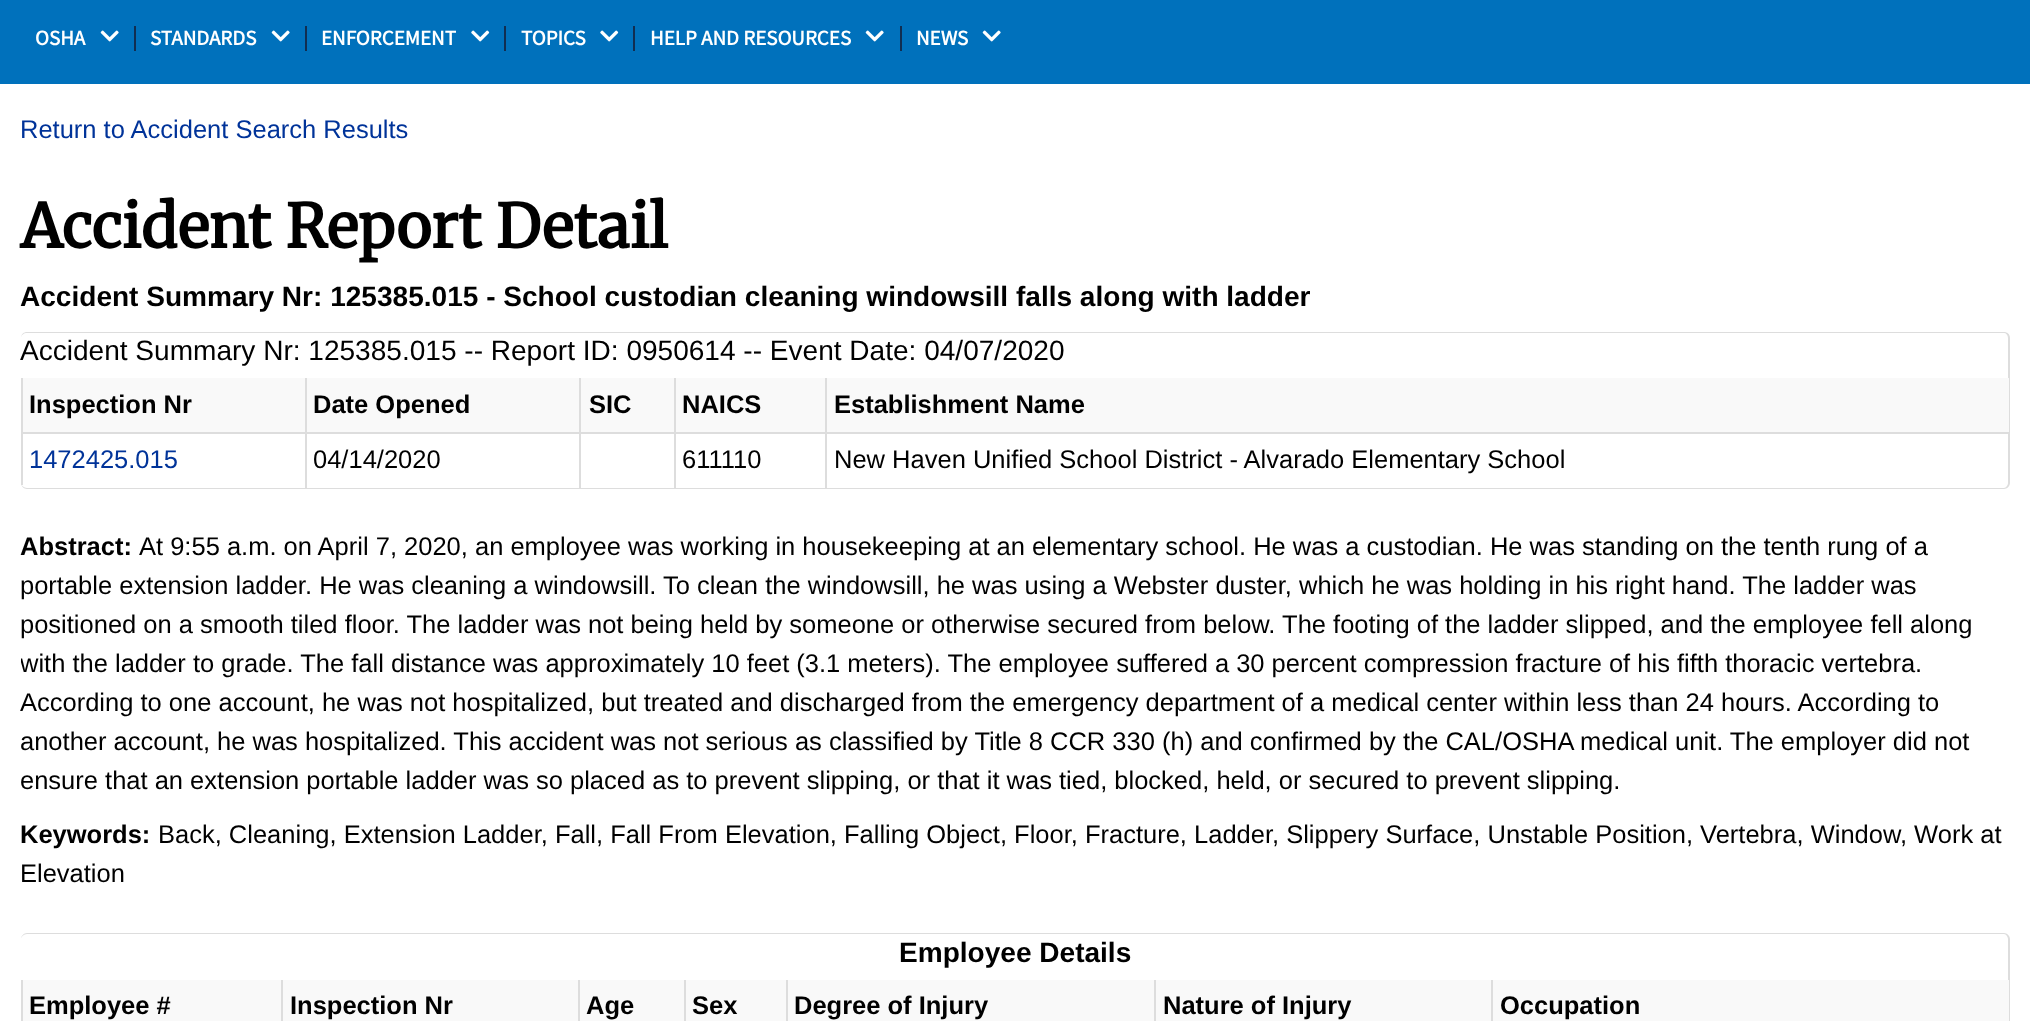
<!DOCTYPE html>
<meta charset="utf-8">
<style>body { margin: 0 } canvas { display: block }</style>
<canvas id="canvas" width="2030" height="1021"></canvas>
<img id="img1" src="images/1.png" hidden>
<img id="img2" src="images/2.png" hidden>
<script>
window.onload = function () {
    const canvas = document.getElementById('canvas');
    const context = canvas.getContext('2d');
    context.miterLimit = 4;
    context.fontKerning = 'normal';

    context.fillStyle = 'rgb(255, 255, 255)';
    context.fillRect(0, 0, 2030, 1021);
    context.fillStyle = 'rgb(0, 113, 188)';
    context.fillRect(0, 0, 2030, 84);
    context.drawImage(document.getElementById('img1'), 100, 30, 19, 12);
    context.fillStyle = 'rgb(17, 46, 81)';
    context.fillRect(134, 26, 2, 25);
    context.drawImage(document.getElementById('img1'), 271, 30, 19, 12);
    context.fillRect(305, 26, 2, 25);
    context.drawImage(document.getElementById('img2'), 471, 30, 19, 12);
    context.fillRect(504, 26, 2, 25);
    context.drawImage(document.getElementById('img2'), 600, 30, 19, 12);
    context.fillRect(633, 26, 2, 25);
    context.drawImage(document.getElementById('img1'), 865, 30, 19, 12);
    context.fillRect(900, 26, 2, 25);
    context.drawImage(document.getElementById('img1'), 982, 30, 19, 12);
    context.fillStyle = 'rgb(221, 221, 221)';
    context.beginPath();
    context.moveTo(27, 332);
    context.lineTo(2004, 332);
    context.bezierCurveTo(2007, 332, 2010, 334, 2010, 338);
    context.lineTo(2010, 483);
    context.bezierCurveTo(2010, 486, 2007, 489, 2004, 489);
    context.lineTo(27, 489);
    context.bezierCurveTo(24, 489, 21, 486, 21, 483);
    context.lineTo(21, 338);
    context.bezierCurveTo(21, 334, 24, 332, 27, 332);
    context.closePath();
    context.moveTo(27, 333);
    context.lineTo(2004, 333);
    context.bezierCurveTo(2006, 333, 2008, 335, 2008, 338);
    context.lineTo(2008, 483);
    context.bezierCurveTo(2008, 485, 2006, 488, 2004, 488);
    context.lineTo(27, 488);
    context.bezierCurveTo(24, 488, 21, 485, 21, 483);
    context.lineTo(21, 338);
    context.bezierCurveTo(21, 335, 24, 333, 27, 333);
    context.closePath();
    context.fill('evenodd');
    context.fillStyle = 'rgb(249, 249, 249)';
    context.fillRect(23, 378, 282, 54);
    context.fillStyle = 'rgb(221, 221, 221)';
    context.fillRect(21, 378, 2, 54);
    context.fillStyle = 'rgb(249, 249, 249)';
    context.fillRect(307, 378, 272, 54);
    context.fillStyle = 'rgb(221, 221, 221)';
    context.fillRect(305, 378, 2, 54);
    context.fillStyle = 'rgb(249, 249, 249)';
    context.fillRect(581, 378, 93, 54);
    context.fillStyle = 'rgb(221, 221, 221)';
    context.fillRect(579, 378, 2, 54);
    context.fillStyle = 'rgb(249, 249, 249)';
    context.fillRect(676, 378, 149, 54);
    context.fillStyle = 'rgb(221, 221, 221)';
    context.fillRect(674, 378, 2, 54);
    context.fillStyle = 'rgb(249, 249, 249)';
    context.fillRect(827, 378, 1182, 54);
    context.fillStyle = 'rgb(221, 221, 221)';
    context.fillRect(825, 378, 2, 54);
    context.fillRect(21, 432, 1988, 2);
    context.fillRect(21, 432, 2, 53);
    context.fillRect(305, 432, 2, 56);
    context.fillRect(579, 432, 2, 56);
    context.fillRect(674, 432, 2, 56);
    context.fillRect(825, 432, 2, 56);
    context.beginPath();
    context.moveTo(27, 933);
    context.lineTo(2004, 933);
    context.bezierCurveTo(2007, 933, 2010, 936, 2010, 939);
    context.lineTo(2010, 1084);
    context.bezierCurveTo(2010, 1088, 2007, 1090, 2004, 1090);
    context.lineTo(27, 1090);
    context.bezierCurveTo(24, 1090, 21, 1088, 21, 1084);
    context.lineTo(21, 939);
    context.bezierCurveTo(21, 936, 24, 933, 27, 933);
    context.closePath();
    context.moveTo(27, 934);
    context.lineTo(2004, 934);
    context.bezierCurveTo(2006, 934, 2008, 937, 2008, 939);
    context.lineTo(2008, 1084);
    context.bezierCurveTo(2008, 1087, 2006, 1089, 2004, 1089);
    context.lineTo(27, 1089);
    context.bezierCurveTo(24, 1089, 21, 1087, 21, 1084);
    context.lineTo(21, 939);
    context.bezierCurveTo(21, 937, 24, 934, 27, 934);
    context.closePath();
    context.fill('evenodd');
    context.fillStyle = 'rgb(249, 249, 249)';
    context.fillRect(23, 980, 258, 41);
    context.fillStyle = 'rgb(221, 221, 221)';
    context.fillRect(21, 980, 2, 41);
    context.fillStyle = 'rgb(249, 249, 249)';
    context.fillRect(283, 980, 295, 41);
    context.fillStyle = 'rgb(221, 221, 221)';
    context.fillRect(281, 980, 2, 41);
    context.fillStyle = 'rgb(249, 249, 249)';
    context.fillRect(580, 980, 104, 41);
    context.fillStyle = 'rgb(221, 221, 221)';
    context.fillRect(578, 980, 2, 41);
    context.fillStyle = 'rgb(249, 249, 249)';
    context.fillRect(686, 980, 100, 41);
    context.fillStyle = 'rgb(221, 221, 221)';
    context.fillRect(684, 980, 2, 41);
    context.fillStyle = 'rgb(249, 249, 249)';
    context.fillRect(788, 980, 366, 41);
    context.fillStyle = 'rgb(221, 221, 221)';
    context.fillRect(786, 980, 2, 41);
    context.fillStyle = 'rgb(249, 249, 249)';
    context.fillRect(1156, 980, 335, 41);
    context.fillStyle = 'rgb(221, 221, 221)';
    context.fillRect(1154, 980, 2, 41);
    context.fillStyle = 'rgb(249, 249, 249)';
    context.fillRect(1493, 980, 516, 41);
    context.fillStyle = 'rgb(221, 221, 221)';
    context.fillRect(1491, 980, 2, 41);
    context.font = 'bold 21px Source Sans Pro';
    context.fillStyle = 'rgb(255, 255, 255)';
    context.fillText('OSHA', 35, 45);
    context.fillText('STANDARDS', 150, 45);
    context.fillText('ENFORCEMENT', 321, 45);
    context.fillText('TOPICS', 521, 45);
    context.fillText('HELP AND RESOURCES', 650, 45);
    context.fillText('NEWS', 916, 45);
    context.font = '25.5px Liberation Sans';
    context.fillStyle = 'rgb(0, 51, 153)';
    context.fillText('Return to Accident Search Results', 20, 138);
    context.font = 'bold 60px Merriweather';
    context.fillStyle = 'rgb(0, 0, 0)';
    context.fillText('Accident Report Detail', 20, 248);
    context.font = 'bold 28.05px Liberation Sans';
    context.fillText('Accident Summary Nr: 125385.015 - School custodian cleaning windowsill falls along with ladder', 20, 306);
    context.font = '28.05px Liberation Sans';
    context.fillText('Accident Summary Nr: 125385.015 -- Report ID: 0950614 -- Event Date: 04/07/2020', 20, 360);
    context.font = 'bold 25.5px Liberation Sans';
    context.fillText('Inspection Nr', 29, 413);
    context.fillText('Date Opened', 313, 413);
    context.fillText('SIC', 589, 413);
    context.fillText('NAICS', 682, 413);
    context.fillText('Establishment Name', 834, 413);
    context.font = '25.5px Liberation Sans';
    context.fillStyle = 'rgb(0, 51, 153)';
    context.fillText('1472425.015', 29, 468);
    context.fillStyle = 'rgb(0, 0, 0)';
    context.fillText('04/14/2020', 313, 468);
    context.fillText('611110', 682, 468);
    context.fillText('New Haven Unified School District - Alvarado Elementary School', 834, 468);
    context.font = 'bold 25.5px Liberation Sans';
    context.fillText('Abstract:', 20, 555);
    context.font = '25.5px Liberation Sans';
    context.fillText('At 9:55 a.m. on April 7, 2020, an employee was working in housekeeping at an elementary school. He was a custodian. He was standing on the tenth rung of a', 139, 555);
    context.fillText('portable extension ladder. He was cleaning a windowsill. To clean the windowsill, he was using a Webster duster, which he was holding in his right hand. The ladder was', 20, 594);
    context.fillText('positioned on a smooth tiled floor. The ladder was not being held by someone or otherwise secured from below. The footing of the ladder slipped, and the employee fell along', 20, 633);
    context.save();
    context.beginPath();
    context.rect(21, 332, 1989, 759);
    context.clip();
    context.fillText('with the ladder to grade. The fall distance was approximately 10 feet (3.1 meters). The employee suffered a 30 percent compression fracture of his fifth thoracic vertebra.', 20, 672);
    context.restore();
    context.fillText('According to one account, he was not hospitalized, but treated and discharged from the emergency department of a medical center within less than 24 hours. According to', 20, 711);
    context.fillText('another account, he was hospitalized. This accident was not serious as classified by Title 8 CCR 330 (h) and confirmed by the CAL/OSHA medical unit. The employer did not', 20, 750);
    context.fillText('ensure that an extension portable ladder was so placed as to prevent slipping, or that it was tied, blocked, held, or secured to prevent slipping.', 20, 789);
    context.font = 'bold 25.5px Liberation Sans';
    context.fillText('Keywords:', 20, 843);
    context.font = '25.5px Liberation Sans';
    context.fillText('Back, Cleaning, Extension Ladder, Fall, Fall From Elevation, Falling Object, Floor, Fracture, Ladder, Slippery Surface, Unstable Position, Vertebra, Window, Work at', 158, 843);
    context.fillText('Elevation', 20, 882);
    context.font = 'bold 28.05px Liberation Sans';
    context.fillText('Employee Details', 899, 962);
    context.font = 'bold 25.5px Liberation Sans';
    context.fillText('Employee #', 29, 1014);
    context.fillText('Inspection Nr', 290, 1014);
    context.fillText('Age', 586, 1014);
    context.fillText('Sex', 692, 1014);
    context.fillText('Degree of Injury', 794, 1014);
    context.fillText('Nature of Injury', 1163, 1014);
    context.fillText('Occupation', 1500, 1014);
};
</script>
